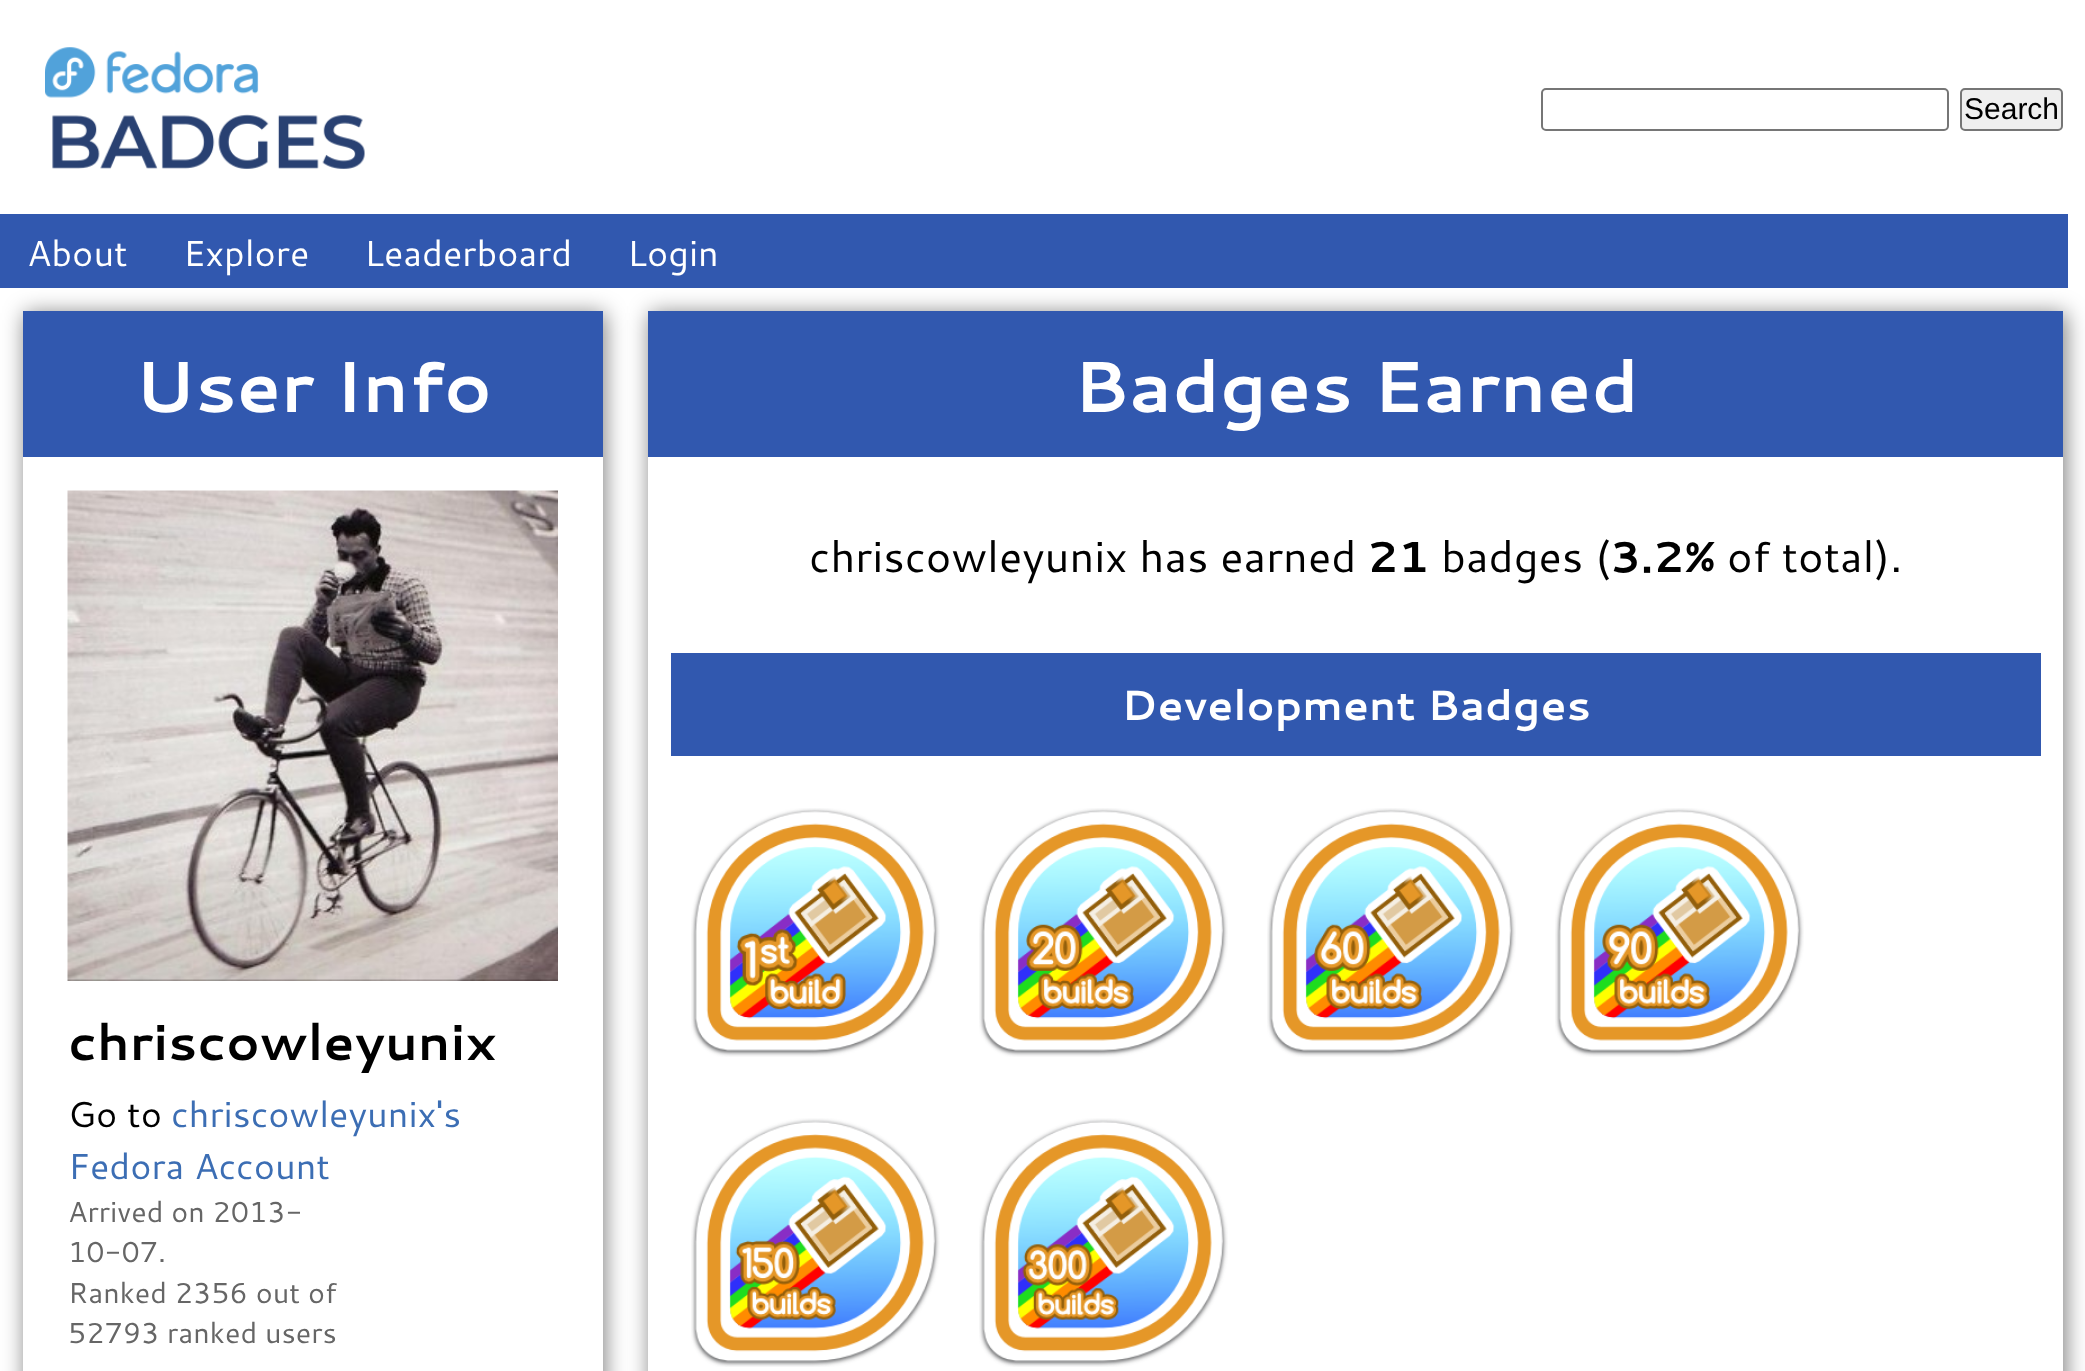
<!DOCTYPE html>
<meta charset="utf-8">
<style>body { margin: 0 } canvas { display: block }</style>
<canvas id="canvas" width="2085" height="1371"></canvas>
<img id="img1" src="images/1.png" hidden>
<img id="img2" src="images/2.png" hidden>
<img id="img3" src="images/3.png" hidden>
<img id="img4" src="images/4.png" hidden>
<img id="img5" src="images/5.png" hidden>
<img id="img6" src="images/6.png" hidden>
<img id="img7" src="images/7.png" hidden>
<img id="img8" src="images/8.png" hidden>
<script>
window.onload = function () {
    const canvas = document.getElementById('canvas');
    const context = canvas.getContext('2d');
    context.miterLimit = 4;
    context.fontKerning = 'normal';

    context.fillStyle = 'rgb(255, 255, 255)';
    context.fillRect(0, 0, 2085, 1371);
    context.drawImage(document.getElementById('img1'), 45, 47, 320, 122);
    context.beginPath();
    context.roundRect(1542, 89, 406, 41, 4);
    context.strokeStyle = 'rgb(118, 118, 118)';
    context.lineWidth = 2;
    context.stroke();
    context.fillStyle = 'rgb(239, 239, 239)';
    context.beginPath();
    context.roundRect(1961, 89, 101, 41, 4);
    context.fill();
    context.stroke();
    context.fillStyle = 'rgb(49, 88, 175)';
    context.fillRect(0, 214, 2068, 74);
    context.save();
    context.beginPath();
    context.moveTo(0, 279);
    context.lineTo(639, 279);
    context.lineTo(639, 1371);
    context.lineTo(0, 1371);
    context.closePath();
    context.moveTo(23, 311);
    context.lineTo(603, 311);
    context.lineTo(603, 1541);
    context.lineTo(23, 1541);
    context.closePath();
    context.clip('evenodd');
    context.fillStyle = 'rgba(0, 0, 0, 0.5)';
    context.filter = 'blur(11px)';
    context.beginPath();
    context.rect(25, 313, 580, 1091);
    context.fill();
    context.filter = 'none';
    context.restore();
    context.fillRect(23, 311, 580, 146);
    context.drawImage(document.getElementById('img2'), 67, 490, 491, 491);
    context.save();
    context.beginPath();
    context.moveTo(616, 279);
    context.lineTo(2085, 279);
    context.lineTo(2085, 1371);
    context.lineTo(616, 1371);
    context.closePath();
    context.moveTo(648, 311);
    context.lineTo(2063, 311);
    context.lineTo(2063, 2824);
    context.lineTo(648, 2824);
    context.closePath();
    context.clip('evenodd');
    context.fillStyle = 'rgba(0, 0, 0, 0.5)';
    context.filter = 'blur(11px)';
    context.beginPath();
    context.rect(650, 313, 1416, 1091);
    context.fill();
    context.filter = 'none';
    context.restore();
    context.fillRect(648, 311, 1415, 146);
    context.fillRect(671, 653, 1370, 103);
    context.drawImage(document.getElementById('img3'), 691, 808, 249, 249);
    context.drawImage(document.getElementById('img4'), 979, 808, 249, 249);
    context.drawImage(document.getElementById('img5'), 1267, 808, 249, 249);
    context.drawImage(document.getElementById('img6'), 1555, 808, 249, 249);
    context.drawImage(document.getElementById('img7'), 691, 1118, 249, 249);
    context.drawImage(document.getElementById('img8'), 979, 1118, 249, 249);
    context.font = '30px Liberation Sans';
    context.fillStyle = 'rgb(0, 0, 0)';
    context.fillText('Search', 1964, 119);
    context.font = '36px Cantarell';
    context.fillStyle = 'rgb(255, 255, 255)';
    context.fillText('About', 27, 266);
    context.fillText('Explore', 183, 266);
    context.fillText('Leaderboard', 364, 266);
    context.fillText('Login', 627, 266);
    context.font = 'bold 72px Cantarell';
    context.fillText('User Info', 134, 412);
    context.font = 'bold 50.5px Cantarell';
    context.fillStyle = 'rgb(0, 0, 0)';
    context.fillText('chriscowleyunix', 68, 1060);
    context.font = '36px Cantarell';
    context.fillText('Go to', 68, 1127);
    context.fillStyle = 'rgb(60, 110, 180)';
    context.fillText('chriscowleyunix\'s', 171, 1127);
    context.fillText('Fedora Account', 68, 1179);
    context.font = '28.75px Cantarell';
    context.fillStyle = 'rgb(102, 102, 102)';
    context.fillText('Arrived on 2013-', 68, 1222);
    context.fillText('10-07.', 68, 1262);
    context.fillText('Ranked 2356 out of', 68, 1303);
    context.fillText('52793 ranked users', 68, 1343);
    context.font = 'bold 72px Cantarell';
    context.fillStyle = 'rgb(255, 255, 255)';
    context.fillText('Badges Earned', 1073, 412);
    context.font = '43.25px Cantarell';
    context.fillStyle = 'rgb(0, 0, 0)';
    context.fillText('chriscowleyunix has earned', 809, 572);
    context.font = 'bold 43.25px Cantarell';
    context.fillText('21', 1367, 572);
    context.font = '43.25px Cantarell';
    context.fillText('badges (', 1441, 572);
    context.font = 'bold 43.25px Cantarell';
    context.fillText('3.2%', 1610, 572);
    context.font = '43.25px Cantarell';
    context.fillText('of total).', 1727, 572);
    context.font = 'bold 42.1px Cantarell';
    context.fillStyle = 'rgb(255, 255, 255)';
    context.fillText('Development Badges', 1121, 720);
};
</script>
